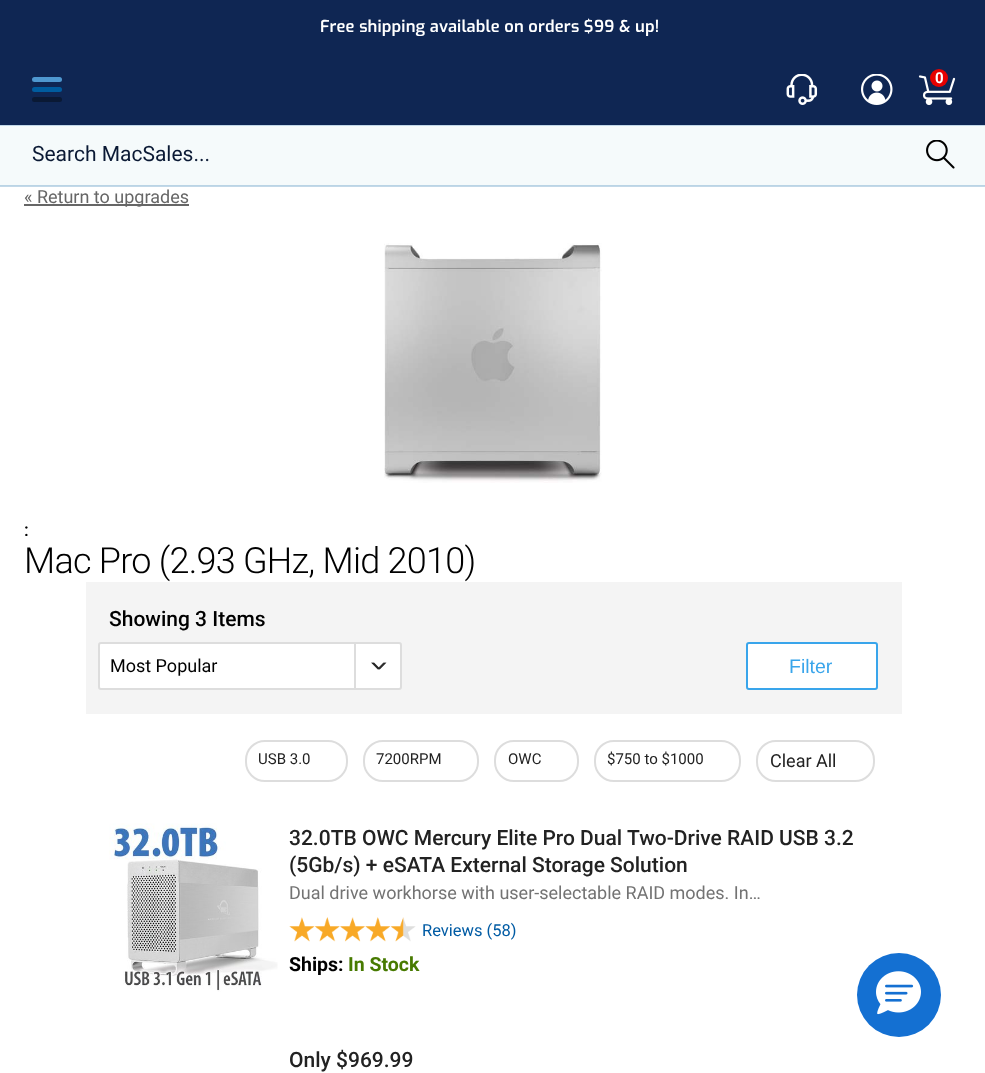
<!DOCTYPE html>
<meta charset="utf-8">
<style>body { margin: 0 } canvas { display: block }</style>
<canvas id="canvas" width="985" height="1073"></canvas>
<img id="img1" src="images/1.png" hidden>
<img id="img2" src="images/2.png" hidden>
<img id="img3" src="images/4.png" hidden>
<img id="img4" src="images/5.png" hidden>
<img id="img5" src="images/6.png" hidden>
<img id="img6" src="images/7.png" hidden>
<img id="img7" src="images/8.png" hidden>
<img id="img8" src="images/9.png" hidden>
<img id="img9" src="images/3.png" hidden>
<script>
window.onload = function () {
    const canvas = document.getElementById('canvas');
    const context = canvas.getContext('2d');
    context.miterLimit = 4;
    context.fontKerning = 'normal';

    context.fillStyle = 'rgb(255, 255, 255)';
    context.fillRect(0, 0, 985, 1073);
    context.fillStyle = 'rgb(194, 216, 232)';
    context.fillRect(0, 186, 985, 1);
    context.fillStyle = 'rgb(15, 38, 83)';
    context.fillRect(0, 0, 985, 125);
    context.fillStyle = 'rgb(79, 152, 208)';
    context.beginPath();
    context.roundRect(32, 77, 30, 5, 2.5);
    context.fill();
    context.fillStyle = 'rgb(0, 92, 159)';
    context.beginPath();
    context.roundRect(32, 87, 30, 5, 2.5);
    context.fill();
    context.fillStyle = 'rgb(10, 25, 52)';
    context.beginPath();
    context.roundRect(32, 97, 30, 5, 2.5);
    context.fill();
    context.drawImage(document.getElementById('img1'), 786, 74, 32, 31);
    context.drawImage(document.getElementById('img2'), 861, 74, 32, 31);
    context.fillStyle = 'rgb(230, 0, 0)';
    context.beginPath();
    context.arc(939, 78, 9, 0, 2 * Math.PI);
    context.fill();
    context.fillStyle = 'rgb(194, 216, 232)';
    context.fillRect(0, 125, 985, 1);
    context.fillStyle = 'rgb(245, 250, 251)';
    context.fillRect(0, 126, 985, 59);
    context.fillStyle = 'rgb(186, 212, 229)';
    context.fillRect(0, 185, 985, 1);
    context.drawImage(document.getElementById('img3'), 926, 140, 29, 29);
    context.fillStyle = 'rgb(102, 102, 102)';
    context.fillRect(24, 204, 165, 2);
    context.drawImage(document.getElementById('img4'), 384, 243, 218, 240);
    context.fillStyle = 'rgb(244, 244, 244)';
    context.fillRect(86, 582, 816, 132);
    context.fillStyle = 'rgb(255, 255, 255)';
    context.beginPath();
    context.roundRect(99, 643, 302, 46, 2);
    context.fill();
    context.strokeStyle = 'rgb(221, 221, 221)';
    context.lineWidth = 2;
    context.stroke();
    context.drawImage(document.getElementById('img5'), 371, 662, 16, 8);
    context.fillStyle = 'rgb(221, 221, 221)';
    context.fillRect(354, 642, 2, 48);
    context.fillStyle = 'rgb(255, 255, 255)';
    context.beginPath();
    context.roundRect(747, 643, 130, 46, 2);
    context.fill();
    context.strokeStyle = 'rgb(57, 165, 235)';
    context.stroke();
    context.beginPath();
    context.roundRect(246, 741, 101, 40, 19);
    context.strokeStyle = 'rgb(221, 221, 221)';
    context.stroke();
    context.beginPath();
    context.roundRect(364, 741, 114, 40, 19);
    context.stroke();
    context.beginPath();
    context.roundRect(495, 741, 83, 40, 19);
    context.stroke();
    context.beginPath();
    context.roundRect(595, 741, 145, 40, 19);
    context.stroke();
    context.beginPath();
    context.roundRect(757, 741, 117, 40, 19);
    context.stroke();
    context.drawImage(document.getElementById('img6'), 109, 823, 169, 169);
    context.drawImage(document.getElementById('img7'), 289, 917, 127, 25);
    context.fillStyle = 'rgb(20, 112, 210)';
    context.beginPath();
    context.arc(899, 995, 42, 0, 2 * Math.PI);
    context.fill();
    context.drawImage(document.getElementById('img8'), 876, 971, 45, 44);
    context.letterSpacing = '0.15px';
    context.font = '600 16.5px Exo';
    context.fillStyle = 'rgb(255, 255, 255)';
    context.fillText('Free shipping available on orders $99 & up!', 320, 32);
    context.letterSpacing = '0px';
    context.font = 'bold 15px Roboto';
    context.fillText('0', 935, 83);
    context.drawImage(document.getElementById('img9'), 918, 75, 38, 31);
    context.font = '21px Roboto';
    context.fillStyle = 'rgb(10, 25, 52)';
    context.fillText('Search MacSales...', 32, 161);
    context.font = '18px Roboto';
    context.fillStyle = 'rgb(102, 102, 102)';
    context.fillText('« Return to upgrades', 24, 203);
    context.font = '500 18px Roboto';
    context.fillStyle = 'rgb(0, 0, 0)';
    context.fillText(':', 24, 536);
    context.letterSpacing = '-0.75px';
    context.font = '300 36px Roboto';
    context.fillText('Mac Pro (2.93 GHz, Mid 2010)', 24, 573);
    context.letterSpacing = '0px';
    context.font = '500 21px Roboto';
    context.fillText('Showing 3 Items', 109, 626);
    context.font = '18px Roboto';
    context.fillText('Most Popular', 110, 672);
    context.font = '19.5px Liberation Sans';
    context.fillStyle = 'rgb(57, 165, 235)';
    context.fillText('Filter', 789, 673);
    context.font = '15px Roboto';
    context.fillStyle = 'rgb(34, 34, 34)';
    context.fillText('USB 3.0', 258, 764);
    context.fillText('7200RPM', 376, 764);
    context.fillText('OWC', 508, 764);
    context.fillText('$750 to $1000', 607, 764);
    context.font = '18px Roboto';
    context.fillText('Clear All', 770, 767);
    context.font = '500 21px Roboto';
    context.fillText('32.0TB OWC Mercury Elite Pro Dual Two-Drive RAID USB 3.2', 289, 845);
    context.fillText('(5Gb/s) + eSATA External Storage Solution', 289, 872);
    context.font = '18px Roboto';
    context.fillStyle = 'rgb(115, 115, 115)';
    context.fillText('Dual drive workhorse with user-selectable RAID modes. In…', 289, 899);
    context.font = '16.5px Roboto';
    context.fillStyle = 'rgb(0, 91, 164)';
    context.fillText('Reviews (58)', 422, 936);
    context.font = 'bold 19.5px Roboto';
    context.fillStyle = 'rgb(0, 0, 0)';
    context.fillText('Ships:', 289, 971);
    context.fillStyle = 'rgb(71, 122, 0)';
    context.fillText('In Stock', 348, 971);
    context.font = '500 21px Roboto';
    context.fillStyle = 'rgb(34, 34, 34)';
    context.fillText('Only $969.99', 289, 1067);
};
</script>
